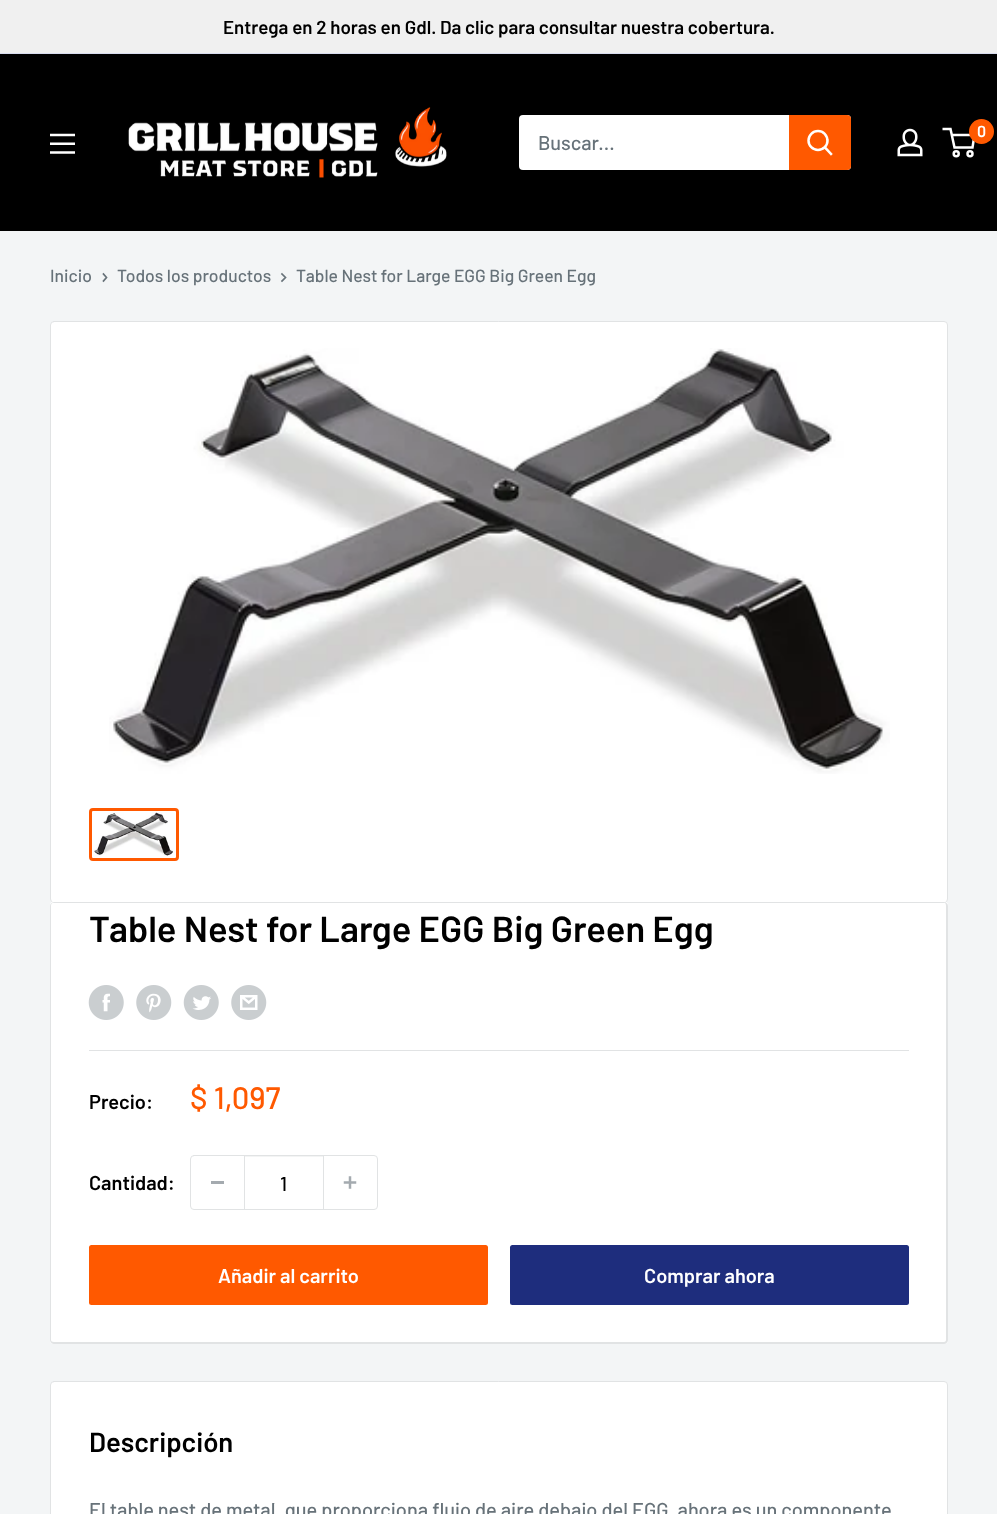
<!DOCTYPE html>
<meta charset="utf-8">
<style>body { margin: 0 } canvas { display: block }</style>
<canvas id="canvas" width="997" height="1514"></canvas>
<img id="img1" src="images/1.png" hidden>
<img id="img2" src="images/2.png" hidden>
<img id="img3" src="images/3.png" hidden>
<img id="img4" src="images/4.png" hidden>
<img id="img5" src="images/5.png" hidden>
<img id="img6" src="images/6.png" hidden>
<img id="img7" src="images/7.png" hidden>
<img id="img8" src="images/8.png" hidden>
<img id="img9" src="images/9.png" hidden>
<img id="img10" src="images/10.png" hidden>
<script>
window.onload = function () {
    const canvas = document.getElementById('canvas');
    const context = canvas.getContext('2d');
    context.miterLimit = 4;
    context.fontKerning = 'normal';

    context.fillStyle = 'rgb(243, 245, 246)';
    context.fillRect(0, 0, 997, 1514);
    context.fillStyle = 'rgb(240, 240, 240)';
    context.fillRect(0, 0, 997, 53);
    context.fillStyle = 'rgb(217, 221, 240)';
    context.fillRect(0, 53, 997, 1);
    context.fillStyle = 'rgb(0, 0, 0)';
    context.fillRect(0, 54, 997, 177);
    context.drawImage(document.getElementById('img1'), 128, 107, 319, 71);
    context.drawImage(document.getElementById('img2'), 897, 128, 26, 29);
    context.beginPath();
    context.arc(956.2, 153.8, 2.5, 0, 2 * Math.PI);
    context.strokeStyle = 'rgb(255, 255, 255)';
    context.lineWidth = 2.5;
    context.stroke();
    context.beginPath();
    context.arc(970, 153.8, 2.5, 0, 2 * Math.PI);
    context.stroke();
    context.beginPath();
    context.moveTo(951.5, 135);
    context.lineTo(974.5, 135);
    context.lineTo(972.5, 147.5);
    context.lineTo(954.5, 147.5);
    context.lineTo(950.5, 129);
    context.lineTo(942.5, 129);
    context.stroke();
    context.fillStyle = 'rgb(255, 89, 0)';
    context.beginPath();
    context.arc(981.5, 131.5, 12.5, 0, 2 * Math.PI);
    context.fill();
    context.drawImage(document.getElementById('img3'), 50, 133, 25, 21);
    context.fillStyle = 'rgb(255, 255, 255)';
    context.beginPath();
    context.roundRect(519, 115, 332, 55, 4);
    context.fill();
    context.fillStyle = 'rgb(255, 89, 0)';
    context.beginPath();
    context.roundRect(789, 115, 62, 55, [0, 4, 4, 0]);
    context.fill();
    context.beginPath();
    context.moveTo(831, 154);
    context.lineTo(825, 147.5);
    context.lineCap = 'square';
    context.stroke();
    context.beginPath();
    context.arc(818, 140.5, 9.5, 0, 2 * Math.PI);
    context.stroke();
    context.beginPath();
    context.moveTo(103.5, 274);
    context.lineTo(106.5, 277.5);
    context.lineTo(103.5, 281);
    context.strokeStyle = 'rgb(103, 114, 121)';
    context.lineWidth = 1.7;
    context.stroke();
    context.beginPath();
    context.moveTo(282, 274);
    context.lineTo(285.5, 277.5);
    context.lineTo(282, 281);
    context.stroke();
    context.fillStyle = 'rgb(255, 255, 255)';
    context.beginPath();
    context.roundRect(50.5, 321.5, 897, 581, 3.5);
    context.fill();
    context.strokeStyle = 'rgb(225, 227, 228)';
    context.lineWidth = 1;
    context.stroke();
    context.drawImage(document.getElementById('img4'), 109, 348, 781, 426);
    context.beginPath();
    context.roundRect(90.5, 809.5, 87, 50, 2.5);
    context.strokeStyle = 'rgb(255, 89, 0)';
    context.lineWidth = 3;
    context.stroke();
    context.drawImage(document.getElementById('img5'), 94, 812, 79, 44);
    context.beginPath();
    context.moveTo(54, 901);
    context.bezierCurveTo(51, 901, 50, 904, 50, 906);
    context.bezierCurveTo(50, 904, 52, 902, 54, 902);
    context.lineTo(944, 902);
    context.bezierCurveTo(946, 902, 948, 904, 948, 906);
    context.lineTo(947, 1341);
    context.lineTo(948, 1339);
    context.lineTo(948, 905);
    context.bezierCurveTo(948, 903, 946, 901, 944, 901);
    context.closePath();
    context.fill();
    context.beginPath();
    context.roundRect(50, 903, 898, 441, 4);
    context.fill();
    context.fillStyle = 'rgb(225, 227, 228)';
    context.beginPath();
    context.moveTo(54, 902);
    context.lineTo(944, 902);
    context.bezierCurveTo(946, 902, 948, 904, 948, 906);
    context.lineTo(948, 1340);
    context.bezierCurveTo(948, 1342, 946, 1344, 944, 1344);
    context.lineTo(54, 1344);
    context.bezierCurveTo(52, 1344, 50, 1342, 50, 1340);
    context.lineTo(50, 906);
    context.bezierCurveTo(50, 904, 52, 902, 54, 902);
    context.closePath();
    context.moveTo(54, 902);
    context.lineTo(944, 902);
    context.bezierCurveTo(945, 902, 946, 904, 946, 906);
    context.lineTo(946, 1340);
    context.bezierCurveTo(946, 1341, 945, 1342, 944, 1342);
    context.lineTo(54, 1342);
    context.bezierCurveTo(52, 1342, 51, 1341, 51, 1340);
    context.lineTo(51, 906);
    context.bezierCurveTo(51, 904, 52, 902, 54, 902);
    context.closePath();
    context.fill('evenodd');
    context.drawImage(document.getElementById('img6'), 88, 985, 36, 35);
    context.drawImage(document.getElementById('img7'), 136, 985, 36, 35);
    context.drawImage(document.getElementById('img8'), 183, 985, 36, 35);
    context.drawImage(document.getElementById('img9'), 231, 985, 36, 35);
    context.fillRect(89, 1050, 820, 1);
    context.beginPath();
    context.roundRect(190.5, 1155.5, 187, 54, 3.5);
    context.strokeStyle = 'rgb(225, 227, 228)';
    context.lineWidth = 1;
    context.stroke();
    context.fillStyle = 'rgb(164, 170, 175)';
    context.fillRect(211, 1181, 13, 3);
    context.fillStyle = 'rgb(243, 244, 244)';
    context.fillRect(245, 1156, 78, 1);
    context.fillStyle = 'rgb(225, 227, 228)';
    context.fillRect(323, 1156, 1, 53);
    context.fillRect(244, 1156, 1, 53);
    context.drawImage(document.getElementById('img10'), 343, 1176, 14, 13);
    context.fillStyle = 'rgb(255, 89, 0)';
    context.beginPath();
    context.roundRect(89, 1245, 399, 60, 2.5);
    context.fill();
    context.fillStyle = 'rgb(30, 45, 125)';
    context.beginPath();
    context.roundRect(510, 1245, 399, 60, 2.5);
    context.fill();
    context.fillStyle = 'rgb(255, 255, 255)';
    context.beginPath();
    context.roundRect(50.5, 1381.5, 897, 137, 3.5);
    context.fill();
    context.stroke();
    context.font = '600 18.75px Barlow';
    context.fillStyle = 'rgb(0, 0, 0)';
    context.fillText('Entrega en 2 horas en Gdl. Da clic para consultar nuestra cobertura.', 223, 34);
    context.font = '600 16px Barlow';
    context.fillStyle = 'rgb(255, 255, 255)';
    context.fillText('0', 977, 137);
    context.font = '500 20px Barlow';
    context.fillStyle = 'rgb(103, 114, 121)';
    context.fillText('Buscar...', 538, 150);
    context.font = '500 17.5px Barlow';
    context.fillText('Inicio', 50, 282);
    context.fillText('Todos los productos', 117, 282);
    context.fillText('Table Nest for Large EGG Big Green Egg', 296, 282);
    context.font = '600 36.25px Barlow';
    context.fillStyle = 'rgb(0, 0, 0)';
    context.fillText('Table Nest for Large EGG Big Green Egg', 89, 942);
    context.font = '600 20px Barlow';
    context.fillText('Precio:', 89, 1109);
    context.font = '500 31px Barlow';
    context.fillStyle = 'rgb(255, 89, 0)';
    context.fillText('$ 1,097', 190, 1109);
    context.font = '600 20px Barlow';
    context.fillStyle = 'rgb(0, 0, 0)';
    context.fillText('Cantidad:', 89, 1190);
    context.font = '500 20px Barlow';
    context.fillText('1', 280, 1191);
    context.font = '600 20px Barlow';
    context.fillStyle = 'rgb(255, 255, 255)';
    context.fillText('Añadir al carrito', 218, 1283);
    context.fillText('Comprar ahora', 644, 1283);
    context.font = '600 27.5px Barlow';
    context.fillStyle = 'rgb(0, 0, 0)';
    context.fillText('Descripción', 89, 1452);
    context.font = '500 20px Barlow';
    context.fillStyle = 'rgb(103, 114, 121)';
    context.fillText('El table nest de metal, que proporciona flujo de aire debajo del EGG, ahora es un componente', 89, 1517);
};
</script>
